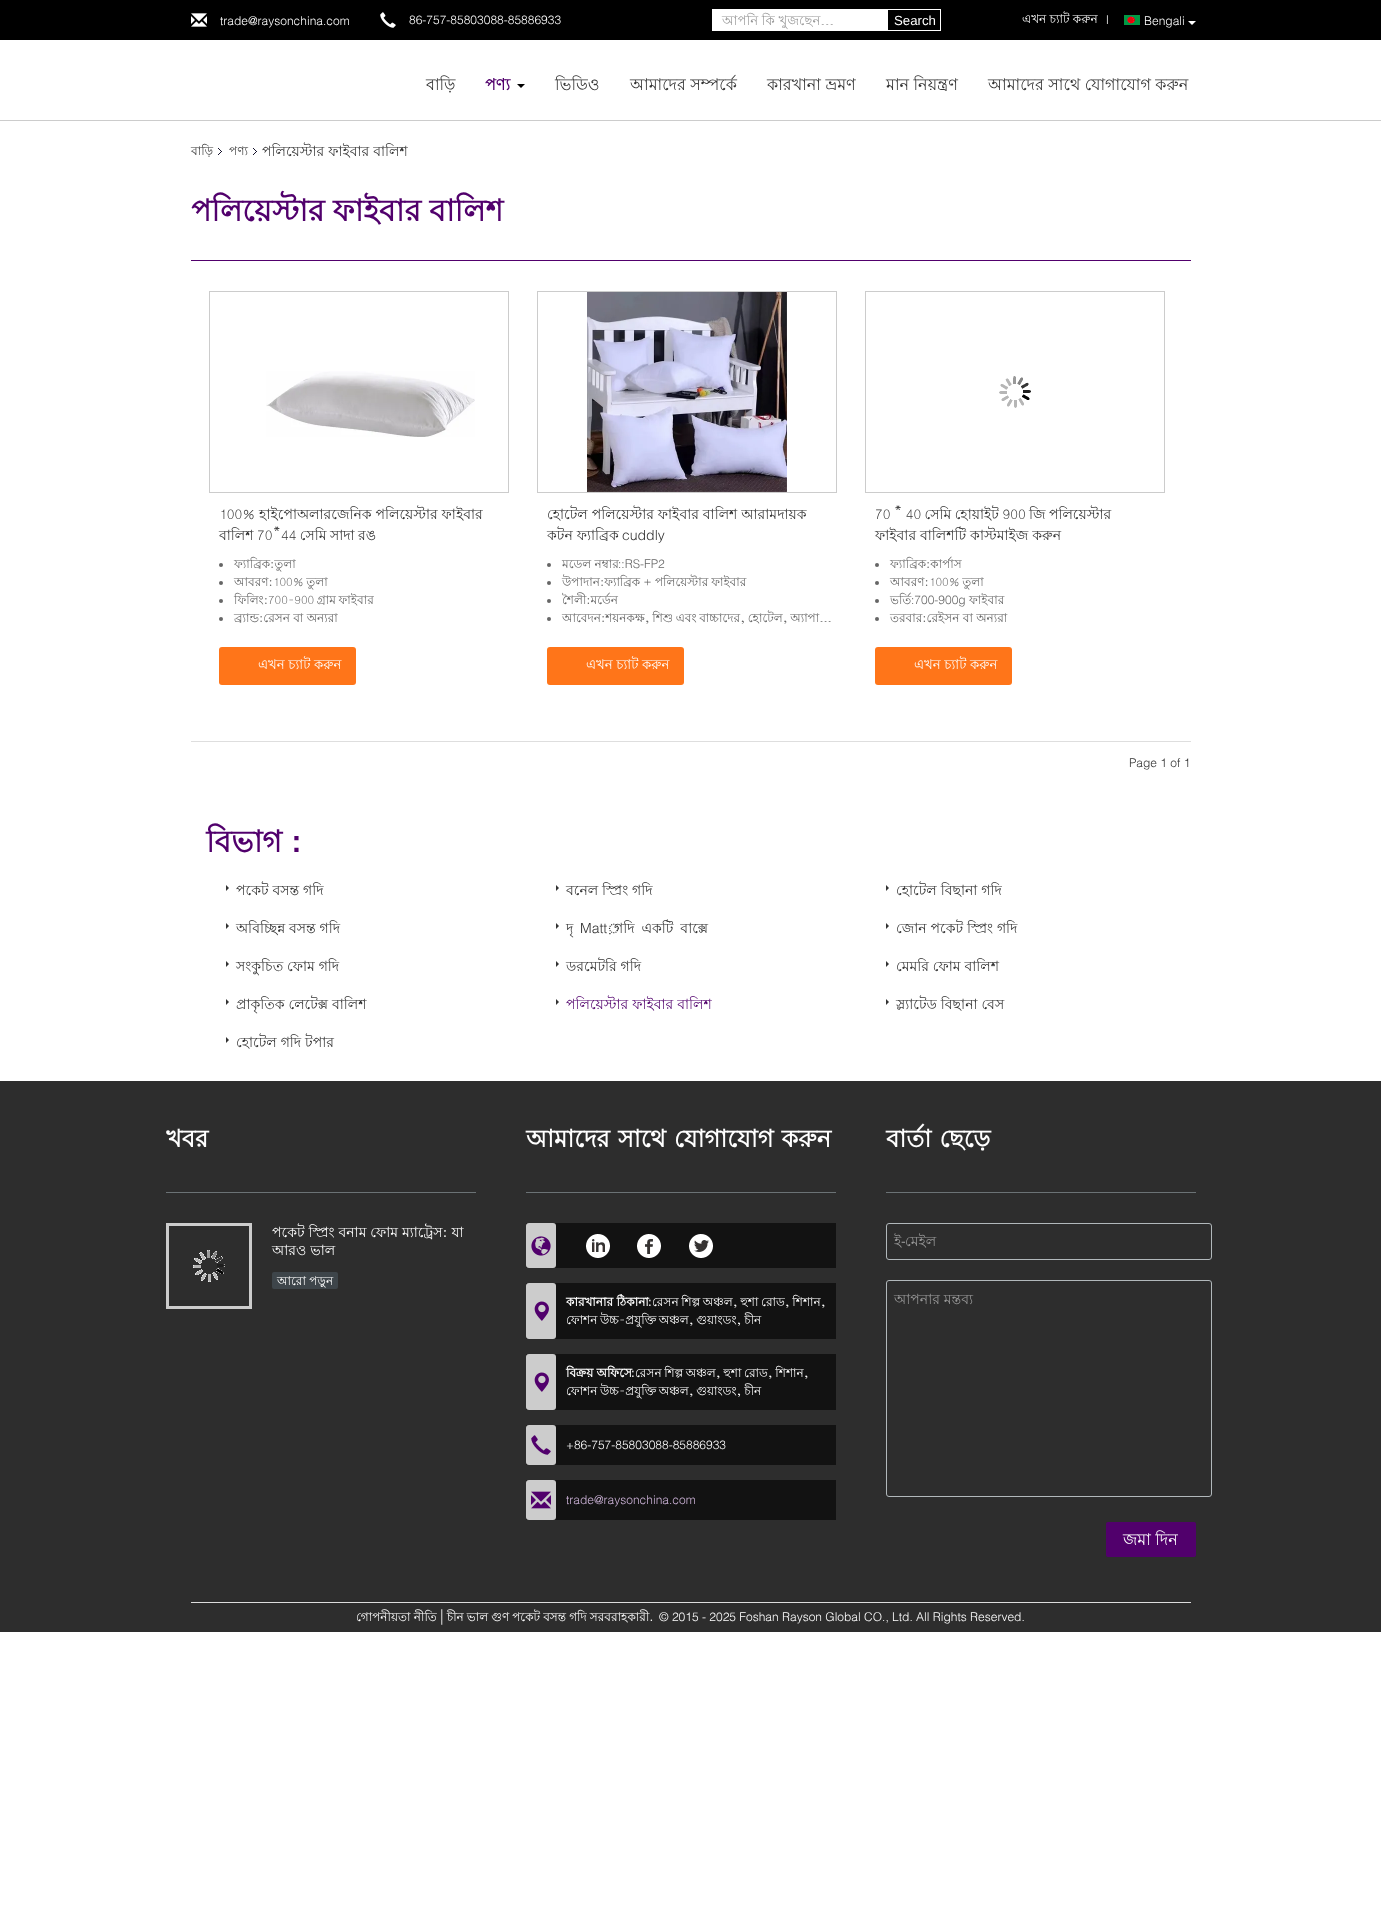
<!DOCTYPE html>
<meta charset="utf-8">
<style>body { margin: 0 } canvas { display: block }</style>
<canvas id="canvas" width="1381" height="1927"></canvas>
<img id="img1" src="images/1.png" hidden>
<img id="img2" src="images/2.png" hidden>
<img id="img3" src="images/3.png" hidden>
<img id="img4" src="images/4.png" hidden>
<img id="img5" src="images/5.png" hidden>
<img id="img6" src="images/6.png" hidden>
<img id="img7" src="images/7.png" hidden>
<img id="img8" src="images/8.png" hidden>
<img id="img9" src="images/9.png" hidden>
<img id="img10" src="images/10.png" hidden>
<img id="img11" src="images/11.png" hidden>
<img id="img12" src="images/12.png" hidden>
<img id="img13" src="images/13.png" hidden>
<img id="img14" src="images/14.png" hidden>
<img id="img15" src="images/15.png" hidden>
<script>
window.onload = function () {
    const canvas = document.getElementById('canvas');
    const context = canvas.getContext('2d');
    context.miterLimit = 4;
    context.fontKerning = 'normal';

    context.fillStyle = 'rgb(255, 255, 255)';
    context.fillRect(0, 0, 1381, 1927);
    context.fillStyle = 'rgb(0, 0, 0)';
    context.fillRect(0, 0, 1381, 40);
    context.drawImage(document.getElementById('img1'), 191, 13, 16, 14);
    context.drawImage(document.getElementById('img2'), 380, 12, 16, 16);
    context.fillStyle = 'rgb(255, 255, 255)';
    context.fillRect(712, 9, 175, 22);
    context.strokeStyle = 'rgb(255, 255, 255)';
    context.strokeRect(887.5, 9.5, 53, 21);
    context.drawImage(document.getElementById('img3'), 1124, 15, 16, 10);
    context.beginPath();
    context.moveTo(1188, 21);
    context.lineTo(1196, 21);
    context.lineTo(1192, 25);
    context.closePath();
    context.fill();
    context.fillStyle = 'rgb(204, 204, 204)';
    context.fillRect(0, 120, 1381, 1);
    context.fillStyle = 'rgb(0, 0, 0)';
    context.beginPath();
    context.moveTo(517, 84);
    context.lineTo(525, 84);
    context.lineTo(521, 88);
    context.closePath();
    context.fill();
    context.drawImage(document.getElementById('img4'), 218, 148, 4, 7);
    context.drawImage(document.getElementById('img4'), 253, 148, 4, 7);
    context.fillStyle = 'rgb(81, 0, 108)';
    context.fillRect(191, 260, 1000, 1);
    context.strokeStyle = 'rgb(204, 204, 204)';
    context.strokeRect(209.5, 291.5, 299, 201);
    context.drawImage(document.getElementById('img5'), 266, 371, 209, 66);
    context.fillStyle = 'rgb(102, 102, 102)';
    context.beginPath();
    context.arc(221, 565, 2, 0, 2 * Math.PI);
    context.fill();
    context.beginPath();
    context.arc(221, 583, 2, 0, 2 * Math.PI);
    context.fill();
    context.beginPath();
    context.arc(221, 601, 2, 0, 2 * Math.PI);
    context.fill();
    context.beginPath();
    context.arc(221, 619, 2, 0, 2 * Math.PI);
    context.fill();
    context.fillStyle = 'rgb(255, 117, 25)';
    context.beginPath();
    context.roundRect(219, 647, 137, 38, 3);
    context.fill();
    context.strokeRect(537.5, 291.5, 299, 201);
    context.drawImage(document.getElementById('img6'), 587, 292, 200, 200);
    context.fillStyle = 'rgb(102, 102, 102)';
    context.beginPath();
    context.arc(549, 565, 2, 0, 2 * Math.PI);
    context.fill();
    context.beginPath();
    context.arc(549, 583, 2, 0, 2 * Math.PI);
    context.fill();
    context.beginPath();
    context.arc(549, 601, 2, 0, 2 * Math.PI);
    context.fill();
    context.beginPath();
    context.arc(549, 619, 2, 0, 2 * Math.PI);
    context.fill();
    context.fillStyle = 'rgb(255, 117, 25)';
    context.beginPath();
    context.roundRect(547, 647, 137, 38, 3);
    context.fill();
    context.strokeRect(865.5, 291.5, 299, 201);
    context.drawImage(document.getElementById('img7'), 999, 376, 32, 32);
    context.fillStyle = 'rgb(102, 102, 102)';
    context.beginPath();
    context.arc(877, 565, 2, 0, 2 * Math.PI);
    context.fill();
    context.beginPath();
    context.arc(877, 583, 2, 0, 2 * Math.PI);
    context.fill();
    context.beginPath();
    context.arc(877, 601, 2, 0, 2 * Math.PI);
    context.fill();
    context.beginPath();
    context.arc(877, 619, 2, 0, 2 * Math.PI);
    context.fill();
    context.fillStyle = 'rgb(255, 117, 25)';
    context.beginPath();
    context.roundRect(875, 647, 137, 38, 3);
    context.fill();
    context.fillStyle = 'rgb(222, 222, 222)';
    context.fillRect(191, 741, 1000, 1);
    context.fillStyle = 'rgb(51, 51, 51)';
    context.beginPath();
    context.moveTo(226, 891);
    context.lineTo(226, 885);
    context.lineTo(229, 888);
    context.closePath();
    context.fill();
    context.beginPath();
    context.moveTo(556, 891);
    context.lineTo(556, 885);
    context.lineTo(559, 888);
    context.closePath();
    context.fill();
    context.beginPath();
    context.moveTo(886, 891);
    context.lineTo(886, 885);
    context.lineTo(889, 888);
    context.closePath();
    context.fill();
    context.beginPath();
    context.moveTo(226, 929);
    context.lineTo(226, 923);
    context.lineTo(229, 926);
    context.closePath();
    context.fill();
    context.beginPath();
    context.moveTo(556, 929);
    context.lineTo(556, 923);
    context.lineTo(559, 926);
    context.closePath();
    context.fill();
    context.beginPath();
    context.moveTo(886, 929);
    context.lineTo(886, 923);
    context.lineTo(889, 926);
    context.closePath();
    context.fill();
    context.beginPath();
    context.moveTo(226, 967);
    context.lineTo(226, 961);
    context.lineTo(229, 964);
    context.closePath();
    context.fill();
    context.beginPath();
    context.moveTo(556, 967);
    context.lineTo(556, 961);
    context.lineTo(559, 964);
    context.closePath();
    context.fill();
    context.beginPath();
    context.moveTo(886, 967);
    context.lineTo(886, 961);
    context.lineTo(889, 964);
    context.closePath();
    context.fill();
    context.beginPath();
    context.moveTo(226, 1005);
    context.lineTo(226, 999);
    context.lineTo(229, 1002);
    context.closePath();
    context.fill();
    context.beginPath();
    context.moveTo(556, 1005);
    context.lineTo(556, 999);
    context.lineTo(559, 1002);
    context.closePath();
    context.fill();
    context.beginPath();
    context.moveTo(886, 1005);
    context.lineTo(886, 999);
    context.lineTo(889, 1002);
    context.closePath();
    context.fill();
    context.beginPath();
    context.moveTo(226, 1043);
    context.lineTo(226, 1037);
    context.lineTo(229, 1040);
    context.closePath();
    context.fill();
    context.fillStyle = 'rgb(45, 45, 45)';
    context.fillRect(0, 1081, 1381, 551);
    context.fillStyle = 'rgb(107, 114, 117)';
    context.fillRect(166, 1192, 310, 1);
    context.beginPath();
    context.moveTo(167.5, 1224.5);
    context.lineTo(250.5, 1224.5);
    context.lineTo(250.5, 1307.5);
    context.lineTo(167.5, 1307.5);
    context.closePath();
    context.lineWidth = 3;
    context.stroke();
    context.drawImage(document.getElementById('img8'), 193, 1250, 32, 32);
    context.fillStyle = 'rgb(62, 69, 74)';
    context.beginPath();
    context.roundRect(272, 1272, 66, 17, 2);
    context.fill();
    context.fillStyle = 'rgb(107, 114, 117)';
    context.fillRect(526, 1192, 310, 1);
    context.fillStyle = 'rgb(18, 18, 18)';
    context.fillRect(526, 1223, 310, 45);
    context.fillStyle = 'rgb(204, 204, 204)';
    context.beginPath();
    context.roundRect(526, 1223, 30, 45, 3);
    context.fill();
    context.drawImage(document.getElementById('img9'), 531, 1236, 20, 20);
    context.drawImage(document.getElementById('img10'), 586, 1234, 24, 24);
    context.drawImage(document.getElementById('img11'), 637, 1234, 24, 24);
    context.drawImage(document.getElementById('img12'), 689, 1234, 24, 24);
    context.fillStyle = 'rgb(18, 18, 18)';
    context.fillRect(526, 1283, 310, 56);
    context.fillStyle = 'rgb(204, 204, 204)';
    context.beginPath();
    context.roundRect(526, 1283, 30, 56, 3);
    context.fill();
    context.drawImage(document.getElementById('img13'), 534, 1301, 15, 20);
    context.fillStyle = 'rgb(18, 18, 18)';
    context.fillRect(526, 1354, 310, 56);
    context.fillStyle = 'rgb(204, 204, 204)';
    context.beginPath();
    context.roundRect(526, 1354, 30, 56, 3);
    context.fill();
    context.drawImage(document.getElementById('img13'), 534, 1372, 15, 20);
    context.fillStyle = 'rgb(18, 18, 18)';
    context.fillRect(526, 1425, 310, 40);
    context.fillStyle = 'rgb(204, 204, 204)';
    context.beginPath();
    context.roundRect(526, 1425, 30, 40, 3);
    context.fill();
    context.drawImage(document.getElementById('img14'), 531, 1435, 20, 20);
    context.fillStyle = 'rgb(18, 18, 18)';
    context.fillRect(526, 1480, 310, 40);
    context.fillStyle = 'rgb(204, 204, 204)';
    context.beginPath();
    context.roundRect(526, 1480, 30, 40, 3);
    context.fill();
    context.drawImage(document.getElementById('img15'), 531, 1491, 20, 18);
    context.fillStyle = 'rgb(107, 114, 117)';
    context.fillRect(886, 1192, 310, 1);
    context.beginPath();
    context.roundRect(886.5, 1223.5, 325, 36, 2.5);
    context.strokeStyle = 'rgb(177, 184, 187)';
    context.lineWidth = 1;
    context.stroke();
    context.beginPath();
    context.roundRect(886.5, 1280.5, 325, 216, 2.5);
    context.stroke();
    context.fillStyle = 'rgb(81, 0, 108)';
    context.beginPath();
    context.roundRect(1106, 1522, 90, 35, 2);
    context.fill();
    context.fillStyle = 'rgb(221, 221, 221)';
    context.fillRect(191, 1602, 1000, 1);
    context.font = '300 12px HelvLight';
    context.fillStyle = 'rgb(255, 255, 255)';
    context.fillText('trade@raysonchina.com', 220, 25);
    context.fillText('86-757-85803088-85886933', 409, 24);
    context.font = '13.25px Lohit Bengali';
    context.fillStyle = 'rgb(153, 153, 153)';
    context.fillText('আপনি কি খুজছেন…', 722, 25);
    context.font = '13.25px Liberation Sans';
    context.fillStyle = 'rgb(255, 255, 255)';
    context.fillText('Search', 894, 25);
    context.font = '12px Lohit Bengali';
    context.fillText('এখন চ্যাট করুন', 1022, 23);
    context.font = '300 12px HelvLight';
    context.fillText('|', 1106, 24);
    context.fillText('Bengali', 1144, 25);
    context.font = '16px Lohit Bengali';
    context.fillStyle = 'rgb(51, 51, 51)';
    context.fillText('বাড়ি', 426, 90);
    context.font = 'bold 16px Lohit Bengali';
    context.fillStyle = 'rgb(81, 0, 108)';
    context.fillText('পণ্য', 485, 90);
    context.font = '16px Lohit Bengali';
    context.fillStyle = 'rgb(51, 51, 51)';
    context.fillText('ভিডিও', 555, 90);
    context.fillText('আমাদের সম্পর্কে', 630, 90);
    context.fillText('কারখানা ভ্রমণ', 767, 90);
    context.fillText('মান নিয়ন্ত্রণ', 886, 90);
    context.fillText('আমাদের সাথে যোগাযোগ করুন', 988, 90);
    context.font = '12px Lohit Bengali';
    context.fillText('বাড়ি', 191, 155);
    context.fillText('পণ্য', 229, 155);
    context.font = '14px Lohit Bengali';
    context.fillText('পলিয়েস্টার ফাইবার বালিশ', 262, 156);
    context.font = 'bold 30px Lohit Bengali';
    context.fillStyle = 'rgb(81, 0, 108)';
    context.fillText('পলিয়েস্টার ফাইবার বালিশ', 191, 221);
    context.font = '14px Lohit Bengali';
    context.fillStyle = 'rgb(51, 51, 51)';
    context.fillText('100% হাইপোঅলারজেনিক পলিয়েস্টার ফাইবার', 219, 519);
    context.wordSpacing = '-0.5px';
    context.fillText('বালিশ 70*44 সেমি সাদা রঙ', 219, 540);
    context.wordSpacing = '0px';
    context.font = '12px Lohit Bengali';
    context.fillStyle = 'rgb(102, 102, 102)';
    context.fillText('ফ্যাব্রিক:তুলা', 234, 568);
    context.wordSpacing = '-0.75px';
    context.fillText('আবরণ:100% তুলা', 234, 586);
    context.fillText('ফিলিং:700-900 গ্রাম ফাইবার', 234, 604);
    context.wordSpacing = '0px';
    context.fillText('ব্র্যান্ড:রেসন বা অন্যরা', 234, 622);
    context.font = '13.25px Lohit Bengali';
    context.fillStyle = 'rgb(255, 255, 255)';
    context.fillText('এখন চ্যাট করুন', 258, 669);
    context.font = '14px Lohit Bengali';
    context.fillStyle = 'rgb(51, 51, 51)';
    context.fillText('হোটেল পলিয়েস্টার ফাইবার বালিশ আরামদায়ক', 547, 519);
    context.fillText('কটন ফ্যাব্রিক', 547, 540);
    context.font = '300 14px HelvLight';
    context.fillText('cuddly', 622, 540);
    context.font = '12px Lohit Bengali';
    context.fillStyle = 'rgb(102, 102, 102)';
    context.fillText('মডেল নম্বার', 562, 568);
    context.font = '300 12px HelvLight';
    context.fillText('::RS-FP2', 618, 568);
    context.wordSpacing = '-0.5px';
    context.font = '12px Lohit Bengali';
    context.fillText('উপাদান:ফ্যাব্রিক + পলিয়েস্টার ফাইবার', 562, 586);
    context.wordSpacing = '0px';
    context.fillText('শৈলী:মর্ডেন', 562, 604);
    context.wordSpacing = '-0.75px';
    context.fillText('আবেদন:শয়নকক্ষ, শিশু এবং বাচ্চাদের, হোটেল, অ্যাপা…', 562, 622);
    context.wordSpacing = '0px';
    context.font = '13.25px Lohit Bengali';
    context.fillStyle = 'rgb(255, 255, 255)';
    context.fillText('এখন চ্যাট করুন', 586, 669);
    context.wordSpacing = '-0.5px';
    context.font = '14px Lohit Bengali';
    context.fillStyle = 'rgb(51, 51, 51)';
    context.fillText('70 * 40 সেমি হোয়াইট 900 জি পলিয়েস্টার', 875, 519);
    context.wordSpacing = '0px';
    context.fillText('ফাইবার বালিশটি কাস্টমাইজ করুন', 875, 540);
    context.font = '12px Lohit Bengali';
    context.fillStyle = 'rgb(102, 102, 102)';
    context.fillText('ফ্যাব্রিক:কার্পাস', 890, 568);
    context.wordSpacing = '-0.75px';
    context.fillText('আবরণ:100% তুলা', 890, 586);
    context.wordSpacing = '0px';
    context.fillText('ভর্তি', 890, 604);
    context.font = '300 12px HelvLight';
    context.fillText(':700-900g', 911, 604);
    context.font = '12px Lohit Bengali';
    context.fillText('ফাইবার', 969, 604);
    context.fillText('তরবার:রেইসন বা অন্যরা', 890, 622);
    context.font = '13.25px Lohit Bengali';
    context.fillStyle = 'rgb(255, 255, 255)';
    context.fillText('এখন চ্যাট করুন', 914, 669);
    context.font = '300 12px HelvLight';
    context.fillStyle = 'rgb(51, 51, 51)';
    context.fillText('Page 1 of 1', 1129, 767);
    context.font = 'bold 30px Lohit Bengali';
    context.fillStyle = 'rgb(81, 0, 108)';
    context.fillText('বিভাগ', 206, 852);
    context.font = 'bold 30px WenQuanYi Zen Hei';
    context.fillText('：', 281, 852);
    context.font = '14px Lohit Bengali';
    context.fillStyle = 'rgb(51, 51, 51)';
    context.fillText('পকেট বসন্ত গদি', 236, 895);
    context.fillText('বনেল স্প্রিং গদি', 566, 895);
    context.fillText('হোটেল বিছানা গদি', 896, 895);
    context.fillText('অবিচ্ছিন্ন বসন্ত গদি', 236, 933);
    context.fillText('দৃ', 566, 933);
    context.font = '300 14px HelvLight';
    context.fillText('Matt়', 580, 933);
    context.wordSpacing = '3px';
    context.font = '14px Lohit Bengali';
    context.fillText('গদি একটি বাক্সে', 614, 933);
    context.wordSpacing = '0px';
    context.fillText('জোন পকেট স্প্রিং গদি', 896, 933);
    context.fillText('সংকুচিত ফোম গদি', 236, 971);
    context.fillText('ডরমেটরি গদি', 566, 971);
    context.fillText('মেমরি ফোম বালিশ', 896, 971);
    context.fillText('প্রাকৃতিক লেটেক্স বালিশ', 236, 1009);
    context.fillStyle = 'rgb(81, 0, 108)';
    context.fillText('পলিয়েস্টার ফাইবার বালিশ', 566, 1009);
    context.fillStyle = 'rgb(51, 51, 51)';
    context.fillText('স্ল্যাটেড বিছানা বেস', 896, 1009);
    context.fillText('হোটেল গদি টপার', 236, 1047);
    context.font = 'bold 24px Lohit Bengali';
    context.fillStyle = 'rgb(255, 255, 255)';
    context.fillText('খবর', 166, 1147);
    context.font = '14px Lohit Bengali';
    context.fillText('পকেট স্প্রিং বনাম ফোম ম্যাট্রেস: যা', 272, 1237);
    context.fillText('আরও ভাল', 272, 1255);
    context.font = '12px Lohit Bengali';
    context.fillText('আরো পড়ুন', 277, 1285);
    context.wordSpacing = '1.5px';
    context.font = 'bold 24px Lohit Bengali';
    context.fillText('আমাদের সাথে যোগাযোগ করুন', 526, 1147);
    context.wordSpacing = '0px';
    context.font = 'bold 12px Lohit Bengali';
    context.fillText('কারখানার ঠিকানা', 566, 1306);
    context.font = 'bold 12px HelvLight';
    context.fillText(':', 648, 1306);
    context.wordSpacing = '-0.75px';
    context.font = '12px Lohit Bengali';
    context.fillText('রেসন শিল্প অঞ্চল, হুশা রোড, শিশান,', 652, 1306);
    context.fillText('ফোশন উচ্চ-প্রযুক্তি অঞ্চল, গুয়াংডং, চীন', 566, 1324);
    context.wordSpacing = '0px';
    context.font = 'bold 12px Lohit Bengali';
    context.fillText('বিক্রয় অফিসে', 566, 1377);
    context.font = 'bold 12px HelvLight';
    context.fillText(':', 631, 1377);
    context.wordSpacing = '-0.75px';
    context.font = '12px Lohit Bengali';
    context.fillText('রেসন শিল্প অঞ্চল, হুশা রোড, শিশান,', 635, 1377);
    context.fillText('ফোশন উচ্চ-প্রযুক্তি অঞ্চল, গুয়াংডং, চীন', 566, 1395);
    context.wordSpacing = '0px';
    context.font = '300 12px HelvLight';
    context.fillText('+86-757-85803088-85886933', 566, 1449);
    context.fillStyle = 'rgb(205, 179, 216)';
    context.fillText('trade@raysonchina.com', 566, 1504);
    context.wordSpacing = '1.5px';
    context.font = 'bold 24px Lohit Bengali';
    context.fillStyle = 'rgb(255, 255, 255)';
    context.fillText('বার্তা ছেড়ে', 886, 1147);
    context.wordSpacing = '0px';
    context.font = '14px Lohit Bengali';
    context.fillStyle = 'rgb(153, 153, 153)';
    context.fillText('ই', 894, 1246);
    context.font = '14px Liberation Sans';
    context.fillText('-', 901, 1246);
    context.font = '14px Lohit Bengali';
    context.fillText('মেইল', 905, 1246);
    context.fillText('আপনার মন্তব্য', 894, 1304);
    context.font = '16px Lohit Bengali';
    context.fillStyle = 'rgb(255, 255, 255)';
    context.fillText('জমা দিন', 1123, 1545);
    context.font = '12px Lohit Bengali';
    context.fillText('গোপনীয়তা নীতি', 356, 1621);
    context.wordSpacing = '-0.25px';
    context.fillText('| চীন ভাল গুণ পকেট বসন্ত গদি সরবরাহকারী.', 440, 1621);
    context.wordSpacing = '0px';
    context.font = '300 12px HelvLight';
    context.fillText('© 2015 - 2025 Foshan Rayson Global CO., Ltd. All Rights Reserved.', 659, 1621);
};
</script>
